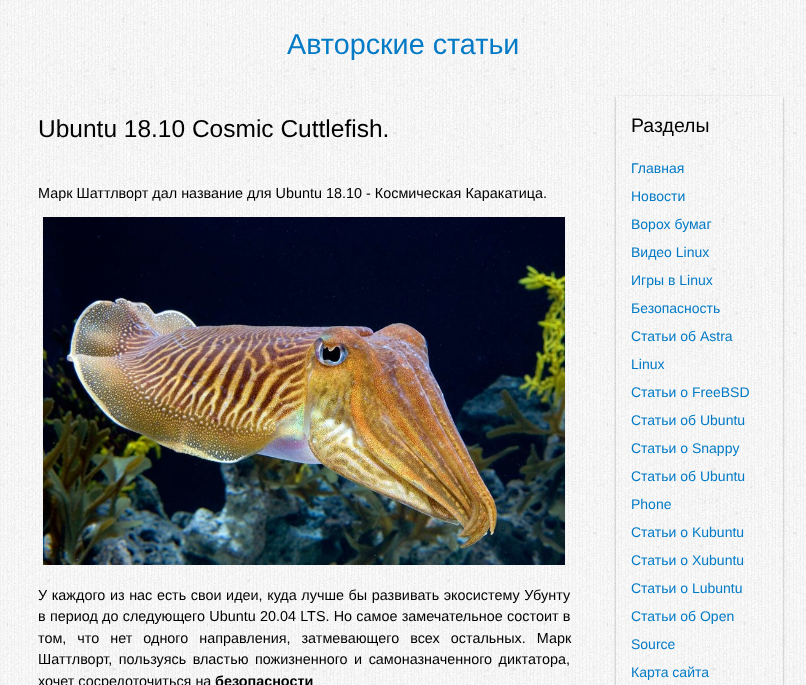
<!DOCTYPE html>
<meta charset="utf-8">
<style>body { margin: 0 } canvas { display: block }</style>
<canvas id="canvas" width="806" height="685"></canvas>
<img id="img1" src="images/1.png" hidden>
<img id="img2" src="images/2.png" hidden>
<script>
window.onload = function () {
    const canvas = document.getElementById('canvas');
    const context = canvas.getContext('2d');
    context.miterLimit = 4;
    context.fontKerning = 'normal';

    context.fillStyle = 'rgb(255, 255, 255)';
    context.fillRect(0, 0, 806, 685);
    context.drawImage(document.getElementById('img1'), 0, 0, 806, 685);
    context.drawImage(document.getElementById('img2'), 43, 217, 522, 348);
    context.save();
    context.beginPath();
    context.moveTo(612, 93);
    context.lineTo(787, 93);
    context.lineTo(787, 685);
    context.lineTo(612, 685);
    context.closePath();
    context.moveTo(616, 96);
    context.lineTo(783, 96);
    context.lineTo(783, 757);
    context.lineTo(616, 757);
    context.closePath();
    context.clip('evenodd');
    context.fillStyle = 'rgba(0, 0, 0, 0.24)';
    context.filter = 'blur(1px)';
    context.beginPath();
    context.rect(616, 97, 167, 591);
    context.fill();
    context.filter = 'none';
    context.restore();
    context.save();
    context.beginPath();
    context.moveTo(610, 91);
    context.lineTo(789, 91);
    context.lineTo(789, 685);
    context.lineTo(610, 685);
    context.closePath();
    context.moveTo(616, 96);
    context.lineTo(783, 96);
    context.lineTo(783, 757);
    context.lineTo(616, 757);
    context.closePath();
    context.clip('evenodd');
    context.fillStyle = 'rgba(0, 0, 0, 0.12)';
    context.filter = 'blur(1.5px)';
    context.beginPath();
    context.rect(616, 97, 167, 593);
    context.fill();
    context.filter = 'none';
    context.restore();
    context.font = '28.75px Liberation Sans';
    context.fillStyle = 'rgb(2, 122, 198)';
    context.fillText('Авторские статьи', 287, 54);
    context.font = '24.5px Liberation Sans';
    context.fillStyle = 'rgb(0, 0, 0)';
    context.fillText('Ubuntu 18.10 Cosmic Cuttlefish.', 38, 137);
    context.font = '14.4px Liberation Sans';
    context.fillText('Марк Шаттлворт дал название для Ubuntu 18.10 - Космическая Каракатица.', 38, 198);
    context.wordSpacing = '0.6px';
    context.fillText('У каждого из нас есть свои идеи, куда лучше бы развивать экосистему Убунту', 38, 600);
    context.wordSpacing = '0.25px';
    context.fillText('в период до следующего Ubuntu 20.04 LTS. Но самое замечательное состоит в', 38, 621);
    context.wordSpacing = '7px';
    context.fillText('том, что нет одного направления, затмевающего всех остальных. Марк', 38, 643);
    context.wordSpacing = '2.5px';
    context.fillText('Шаттлворт, пользуясь властью пожизненного и самоназначенного диктатора,', 38, 664);
    context.wordSpacing = '0px';
    context.fillText('хочет сосредоточиться на', 38, 686);
    context.font = 'bold 14.4px Liberation Sans';
    context.fillText('безопасности', 215, 686);
    context.font = '19.5px Liberation Sans';
    context.fillText('Разделы', 631, 132);
    context.font = '14px Liberation Sans';
    context.fillStyle = 'rgb(2, 122, 198)';
    context.fillText('Главная', 631, 173);
    context.fillText('Новости', 631, 201);
    context.fillText('Ворох бумаг', 631, 229);
    context.fillText('Видео Linux', 631, 257);
    context.fillText('Игры в Linux', 631, 285);
    context.fillText('Безопасность', 631, 313);
    context.fillText('Статьи об Astra', 631, 341);
    context.fillText('Linux', 631, 369);
    context.fillText('Статьи о FreeBSD', 631, 397);
    context.fillText('Статьи об Ubuntu', 631, 425);
    context.fillText('Статьи о Snappy', 631, 453);
    context.fillText('Статьи об Ubuntu', 631, 481);
    context.fillText('Phone', 631, 509);
    context.fillText('Статьи о Kubuntu', 631, 537);
    context.fillText('Статьи о Xubuntu', 631, 565);
    context.fillText('Статьи о Lubuntu', 631, 593);
    context.fillText('Статьи об Open', 631, 621);
    context.fillText('Source', 631, 649);
    context.fillText('Карта сайта', 631, 677);
};
</script>
